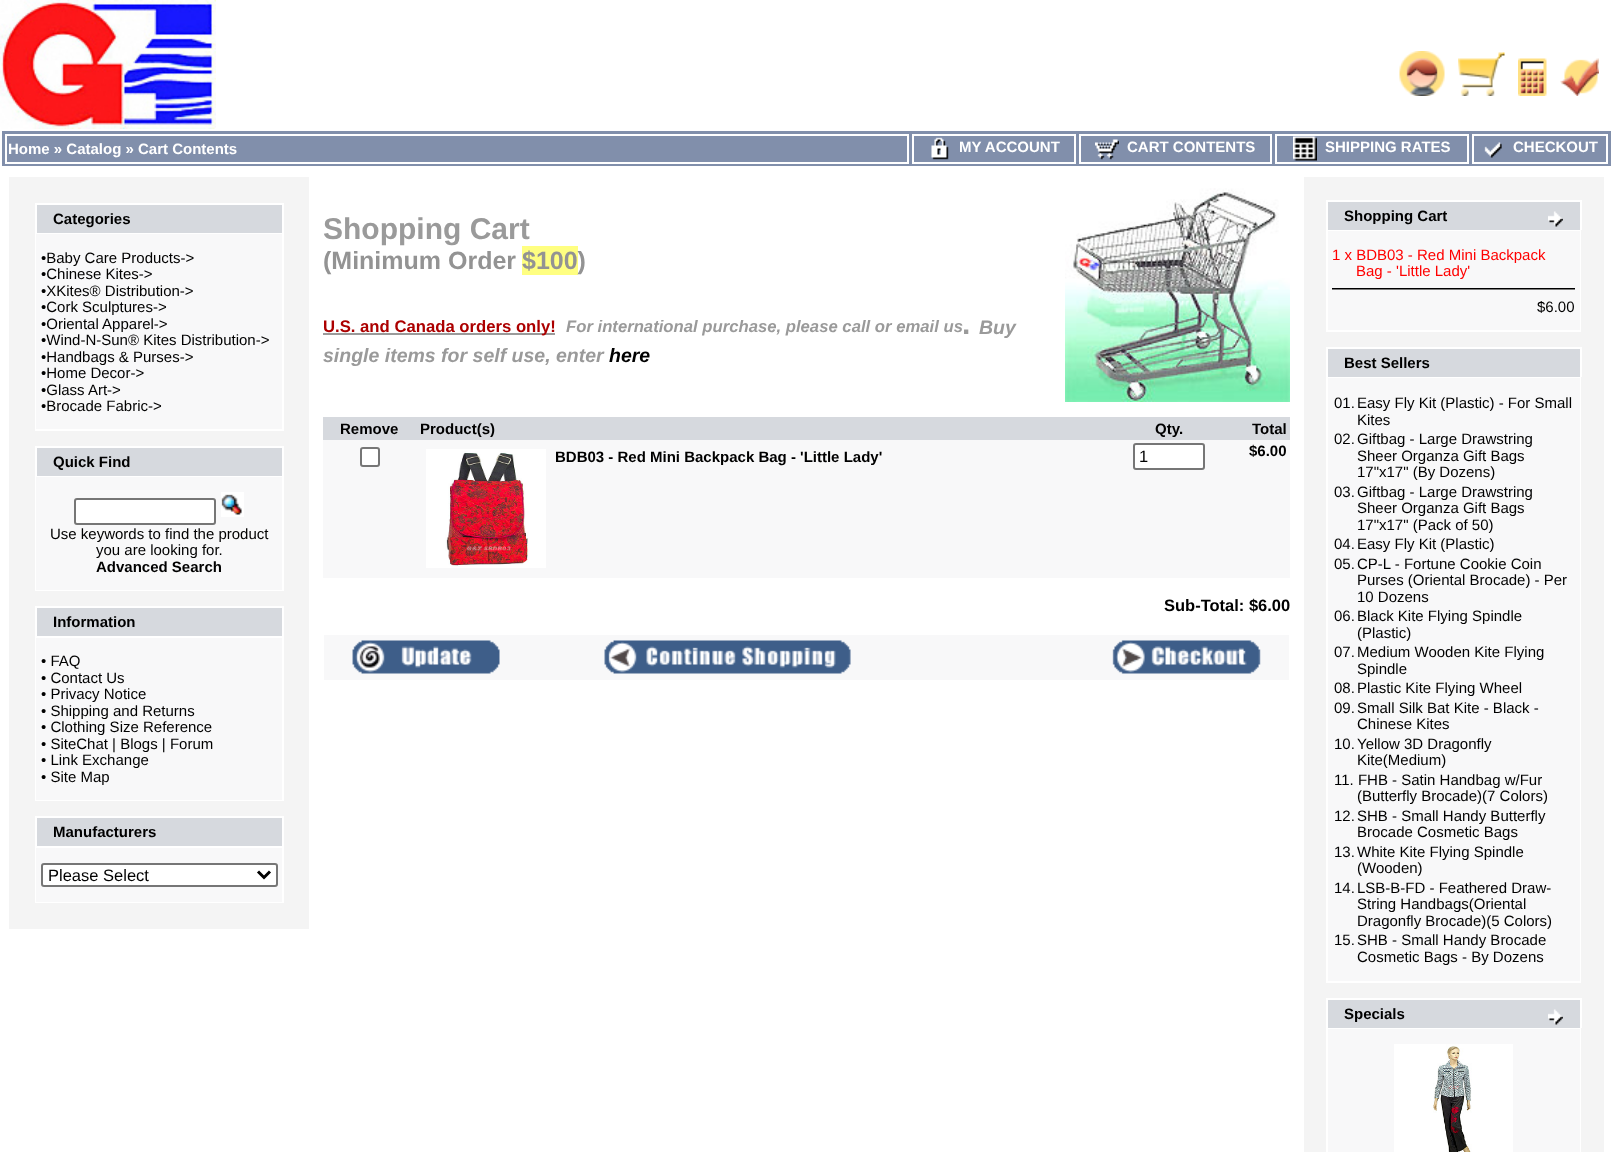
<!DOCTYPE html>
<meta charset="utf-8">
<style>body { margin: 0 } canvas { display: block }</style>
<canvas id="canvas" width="1612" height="1152"></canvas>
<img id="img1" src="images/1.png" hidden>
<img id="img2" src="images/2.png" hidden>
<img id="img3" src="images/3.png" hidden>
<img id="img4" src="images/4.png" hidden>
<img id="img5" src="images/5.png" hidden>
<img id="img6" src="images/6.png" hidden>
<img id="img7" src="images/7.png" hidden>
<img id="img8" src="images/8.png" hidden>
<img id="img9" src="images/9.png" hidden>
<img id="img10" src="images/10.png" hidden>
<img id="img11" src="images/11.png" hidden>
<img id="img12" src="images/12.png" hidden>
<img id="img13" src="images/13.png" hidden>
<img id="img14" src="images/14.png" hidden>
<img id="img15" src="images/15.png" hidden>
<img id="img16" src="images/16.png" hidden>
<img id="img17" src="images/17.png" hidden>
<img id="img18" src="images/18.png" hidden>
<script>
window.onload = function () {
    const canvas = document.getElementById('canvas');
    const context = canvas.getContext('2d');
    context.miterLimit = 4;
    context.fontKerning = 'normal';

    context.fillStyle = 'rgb(255, 255, 255)';
    context.fillRect(0, 0, 1612, 1152);
    context.drawImage(document.getElementById('img1'), 0, 0, 216, 129);
    context.drawImage(document.getElementById('img2'), 1399, 51, 46, 45);
    context.drawImage(document.getElementById('img3'), 1458, 52, 47, 44);
    context.drawImage(document.getElementById('img4'), 1518, 58, 29, 38);
    context.drawImage(document.getElementById('img5'), 1560, 58, 39, 38);
    context.fillStyle = 'rgb(129, 143, 171)';
    context.fillRect(2, 131, 1609, 35);
    context.strokeStyle = 'rgb(255, 255, 255)';
    context.lineWidth = 2;
    context.strokeRect(6, 135, 902, 28);
    context.strokeRect(913, 135, 162, 28);
    context.drawImage(document.getElementById('img6'), 931, 137, 18, 23);
    context.strokeRect(1080, 135, 191, 28);
    context.drawImage(document.getElementById('img7'), 1095, 139, 24, 21);
    context.strokeRect(1276, 135, 192, 28);
    context.drawImage(document.getElementById('img8'), 1293, 136, 24, 25);
    context.strokeRect(1473, 135, 134, 28);
    context.drawImage(document.getElementById('img9'), 1484, 142, 18, 16);
    context.fillStyle = 'rgb(244, 244, 244)';
    context.fillRect(9, 177, 300, 752);
    context.fillStyle = 'rgb(214, 217, 222)';
    context.fillRect(37, 205, 245, 28);
    context.fillStyle = 'rgb(255, 255, 255)';
    context.fillRect(35, 203, 249, 2);
    context.fillRect(35, 203, 2, 30);
    context.fillRect(282, 203, 2, 30);
    context.fillRect(35, 233, 249, 198);
    context.fillStyle = 'rgb(248, 248, 249)';
    context.fillRect(36, 234, 246, 195);
    context.fillStyle = 'rgb(214, 217, 222)';
    context.fillRect(37, 448, 245, 28);
    context.fillStyle = 'rgb(255, 255, 255)';
    context.fillRect(35, 446, 249, 2);
    context.fillRect(35, 446, 2, 30);
    context.fillRect(282, 446, 2, 30);
    context.fillRect(35, 476, 249, 115);
    context.fillStyle = 'rgb(248, 248, 249)';
    context.fillRect(36, 477, 246, 113);
    context.fillStyle = 'rgb(255, 255, 255)';
    context.beginPath();
    context.roundRect(75, 499, 140, 25, 2);
    context.fill();
    context.strokeStyle = 'rgb(118, 118, 118)';
    context.stroke();
    context.drawImage(document.getElementById('img10'), 221, 492, 23, 25);
    context.fillStyle = 'rgb(214, 217, 222)';
    context.fillRect(37, 608, 245, 28);
    context.fillStyle = 'rgb(255, 255, 255)';
    context.fillRect(35, 606, 249, 2);
    context.fillRect(35, 606, 2, 30);
    context.fillRect(282, 606, 2, 30);
    context.fillRect(35, 636, 249, 165);
    context.fillStyle = 'rgb(248, 248, 249)';
    context.fillRect(36, 638, 246, 162);
    context.fillStyle = 'rgb(214, 217, 222)';
    context.fillRect(37, 818, 245, 28);
    context.fillStyle = 'rgb(255, 255, 255)';
    context.fillRect(35, 816, 249, 2);
    context.fillRect(35, 816, 2, 30);
    context.fillRect(282, 816, 2, 30);
    context.fillRect(35, 846, 249, 57);
    context.fillStyle = 'rgb(248, 248, 249)';
    context.fillRect(36, 848, 246, 54);
    context.fillStyle = 'rgb(255, 255, 255)';
    context.beginPath();
    context.roundRect(42, 864, 235, 22, 2);
    context.fill();
    context.stroke();
    context.beginPath();
    context.moveTo(258, 871.5);
    context.lineTo(264, 877.5);
    context.lineTo(270, 871.5);
    context.strokeStyle = 'rgb(0, 0, 0)';
    context.lineWidth = 3;
    context.stroke();
    context.fillStyle = 'rgb(255, 255, 129)';
    context.fillRect(522, 246, 56, 29);
    context.fillStyle = 'rgb(154, 154, 154)';
    context.fillRect(323, 333, 232, 2);
    context.drawImage(document.getElementById('img11'), 1065, 188, 225, 214);
    context.fillStyle = 'rgb(214, 217, 222)';
    context.fillRect(323, 417, 967, 23);
    context.fillStyle = 'rgb(248, 248, 249)';
    context.fillRect(323, 440, 967, 138);
    context.fillStyle = 'rgb(255, 255, 255)';
    context.beginPath();
    context.roundRect(361, 448, 18, 18, 2);
    context.fill();
    context.strokeStyle = 'rgb(118, 118, 118)';
    context.lineWidth = 2;
    context.stroke();
    context.drawImage(document.getElementById('img12'), 426, 449, 120, 119);
    context.beginPath();
    context.roundRect(1134, 444, 70, 25, 2);
    context.fill();
    context.stroke();
    context.fillStyle = 'rgb(248, 248, 249)';
    context.fillRect(324, 635, 965, 45);
    context.drawImage(document.getElementById('img13'), 352, 640, 148, 34);
    context.drawImage(document.getElementById('img14'), 604, 640, 247, 34);
    context.drawImage(document.getElementById('img15'), 1112, 640, 149, 34);
    context.fillStyle = 'rgb(244, 244, 244)';
    context.fillRect(1304, 177, 300, 975);
    context.fillStyle = 'rgb(214, 217, 222)';
    context.fillRect(1328, 202, 252, 28);
    context.fillStyle = 'rgb(255, 255, 255)';
    context.fillRect(1326, 200, 255, 2);
    context.fillRect(1326, 200, 2, 30);
    context.fillRect(1580, 200, 2, 30);
    context.drawImage(document.getElementById('img16'), 1548, 211, 15, 16);
    context.fillRect(1326, 230, 255, 102);
    context.fillStyle = 'rgb(248, 248, 249)';
    context.fillRect(1328, 231, 252, 99);
    context.drawImage(document.getElementById('img17'), 1332, 288, 243, 2);
    context.fillStyle = 'rgb(214, 217, 222)';
    context.fillRect(1328, 349, 252, 28);
    context.fillStyle = 'rgb(255, 255, 255)';
    context.fillRect(1326, 347, 255, 2);
    context.fillRect(1326, 347, 2, 30);
    context.fillRect(1580, 347, 2, 30);
    context.fillRect(1326, 377, 255, 606);
    context.fillStyle = 'rgb(248, 248, 249)';
    context.fillRect(1328, 378, 252, 603);
    context.fillStyle = 'rgb(214, 217, 222)';
    context.fillRect(1328, 1000, 252, 28);
    context.fillStyle = 'rgb(255, 255, 255)';
    context.fillRect(1326, 998, 255, 2);
    context.fillRect(1326, 998, 2, 30);
    context.fillRect(1580, 998, 2, 30);
    context.drawImage(document.getElementById('img16'), 1548, 1009, 15, 16);
    context.fillRect(1326, 1028, 255, 124);
    context.fillStyle = 'rgb(248, 248, 249)';
    context.fillRect(1328, 1029, 252, 123);
    context.drawImage(document.getElementById('img18'), 1394, 1044, 119, 108);
    context.font = 'bold 15px Liberation Sans';
    context.fillStyle = 'rgb(255, 255, 255)';
    context.fillText('Home » Catalog » Cart Contents', 8, 154);
    context.fillText('MY ACCOUNT', 959, 152);
    context.fillText('CART CONTENTS', 1127, 152);
    context.fillText('SHIPPING RATES', 1325, 152);
    context.fillText('CHECKOUT', 1513, 152);
    context.fillStyle = 'rgb(0, 0, 0)';
    context.fillText('Categories', 53, 224);
    context.font = '15px Liberation Sans';
    context.fillText('•Baby Care Products->', 41, 263);
    context.fillText('•Chinese Kites->', 41, 279);
    context.fillText('•XKites® Distribution->', 41, 296);
    context.fillText('•Cork Sculptures->', 41, 312);
    context.fillText('•Oriental Apparel->', 41, 329);
    context.fillText('•Wind-N-Sun® Kites Distribution->', 41, 345);
    context.fillText('•Handbags & Purses->', 41, 362);
    context.fillText('•Home Decor->', 41, 378);
    context.fillText('•Glass Art->', 41, 395);
    context.fillText('•Brocade Fabric->', 41, 411);
    context.font = 'bold 15px Liberation Sans';
    context.fillText('Quick Find', 53, 467);
    context.font = '15px Liberation Sans';
    context.fillText('Use keywords to find the product', 50, 539);
    context.fillText('you are looking for.', 96, 555);
    context.font = 'bold 15px Liberation Sans';
    context.fillText('Advanced Search', 96, 572);
    context.fillText('Information', 53, 627);
    context.font = '15px Liberation Sans';
    context.fillText('• FAQ', 41, 666);
    context.fillText('• Contact Us', 41, 683);
    context.fillText('• Privacy Notice', 41, 699);
    context.fillText('• Shipping and Returns', 41, 716);
    context.fillText('• Clothing Size Reference', 41, 732);
    context.fillText('• SiteChat | Blogs | Forum', 41, 749);
    context.fillText('• Link Exchange', 41, 765);
    context.fillText('• Site Map', 41, 782);
    context.font = 'bold 15px Liberation Sans';
    context.fillText('Manufacturers', 53, 837);
    context.font = '16.5px Liberation Sans';
    context.fillText('Please Select', 48, 881);
    context.font = 'bold 30px Liberation Sans';
    context.fillStyle = 'rgb(154, 154, 154)';
    context.fillText('Shopping Cart', 323, 239);
    context.font = 'bold 25px Liberation Sans';
    context.fillStyle = 'rgb(147, 147, 147)';
    context.fillText('(Minimum Order', 323, 269);
    context.fillText('$100)', 522, 269);
    context.font = 'bold 16.7px Liberation Sans';
    context.fillStyle = 'rgb(172, 0, 0)';
    context.fillText('U.S. and Canada orders only!', 323, 332);
    context.font = 'italic bold 16.7px Liberation Sans';
    context.fillStyle = 'rgb(154, 154, 154)';
    context.fillText('For international purchase, please call or email us', 566, 332);
    context.font = 'bold 30px Liberation Sans';
    context.fillText('.', 962, 334);
    context.font = 'italic bold 19.5px Liberation Sans';
    context.fillText('Buy', 979, 334);
    context.fillText('single items for self use, enter', 323, 362);
    context.fillStyle = 'rgb(0, 0, 0)';
    context.fillText('here', 609, 362);
    context.font = 'bold 15px Liberation Sans';
    context.fillText('Remove', 340, 434);
    context.fillText('Product(s)', 420, 434);
    context.fillText('Qty.', 1155, 434);
    context.fillText('Total', 1252, 434);
    context.fillText('BDB03 - Red Mini Backpack Bag - \'Little Lady\'', 555, 462);
    context.font = '16.5px Liberation Sans';
    context.fillText('1', 1139, 462);
    context.font = 'bold 15px Liberation Sans';
    context.fillText('$6.00', 1249, 456);
    context.font = 'bold 16.5px Liberation Sans';
    context.fillText('Sub-Total: $6.00', 1164, 611);
    context.font = 'bold 15px Liberation Sans';
    context.fillText('Shopping Cart', 1344, 221);
    context.font = '15px Liberation Sans';
    context.fillStyle = 'rgb(255, 0, 0)';
    context.fillText('1 x BDB03 - Red Mini Backpack', 1332, 260);
    context.fillText('Bag - \'Little Lady\'', 1356, 276);
    context.fillStyle = 'rgb(0, 0, 0)';
    context.fillText('$6.00', 1537, 312);
    context.font = 'bold 15px Liberation Sans';
    context.fillText('Best Sellers', 1344, 368);
    context.font = '15px Liberation Sans';
    context.fillText('01.', 1334, 408);
    context.fillText('Easy Fly Kit (Plastic) - For Small', 1357, 408);
    context.fillText('Kites', 1357, 425);
    context.fillText('02.', 1334, 444);
    context.fillText('Giftbag - Large Drawstring', 1357, 444);
    context.fillText('Sheer Organza Gift Bags', 1357, 461);
    context.fillText('17"x17" (By Dozens)', 1357, 477);
    context.fillText('03.', 1334, 497);
    context.fillText('Giftbag - Large Drawstring', 1357, 497);
    context.fillText('Sheer Organza Gift Bags', 1357, 513);
    context.fillText('17"x17" (Pack of 50)', 1357, 530);
    context.fillText('04.', 1334, 549);
    context.fillText('Easy Fly Kit (Plastic)', 1357, 549);
    context.fillText('05.', 1334, 569);
    context.fillText('CP-L - Fortune Cookie Coin', 1357, 569);
    context.fillText('Purses (Oriental Brocade) - Per', 1357, 585);
    context.fillText('10 Dozens', 1357, 602);
    context.fillText('06.', 1334, 621);
    context.fillText('Black Kite Flying Spindle', 1357, 621);
    context.fillText('(Plastic)', 1357, 638);
    context.fillText('07.', 1334, 657);
    context.fillText('Medium Wooden Kite Flying', 1357, 657);
    context.fillText('Spindle', 1357, 674);
    context.fillText('08.', 1334, 693);
    context.fillText('Plastic Kite Flying Wheel', 1357, 693);
    context.fillText('09.', 1334, 713);
    context.fillText('Small Silk Bat Kite - Black -', 1357, 713);
    context.fillText('Chinese Kites', 1357, 729);
    context.fillText('10.', 1334, 749);
    context.fillText('Yellow 3D Dragonfly', 1357, 749);
    context.fillText('Kite(Medium)', 1357, 765);
    context.fillText('11. FHB - Satin Handbag w/Fur', 1334, 785);
    context.fillText('(Butterfly Brocade)(7 Colors)', 1357, 801);
    context.fillText('12.', 1334, 821);
    context.fillText('SHB - Small Handy Butterfly', 1357, 821);
    context.fillText('Brocade Cosmetic Bags', 1357, 837);
    context.fillText('13.', 1334, 857);
    context.fillText('White Kite Flying Spindle', 1357, 857);
    context.fillText('(Wooden)', 1357, 873);
    context.fillText('14.', 1334, 893);
    context.fillText('LSB-B-FD - Feathered Draw-', 1357, 893);
    context.fillText('String Handbags(Oriental', 1357, 909);
    context.fillText('Dragonfly Brocade)(5 Colors)', 1357, 926);
    context.fillText('15.', 1334, 945);
    context.fillText('SHB - Small Handy Brocade', 1357, 945);
    context.fillText('Cosmetic Bags - By Dozens', 1357, 962);
    context.font = 'bold 15px Liberation Sans';
    context.fillText('Specials', 1344, 1019);
};
</script>
